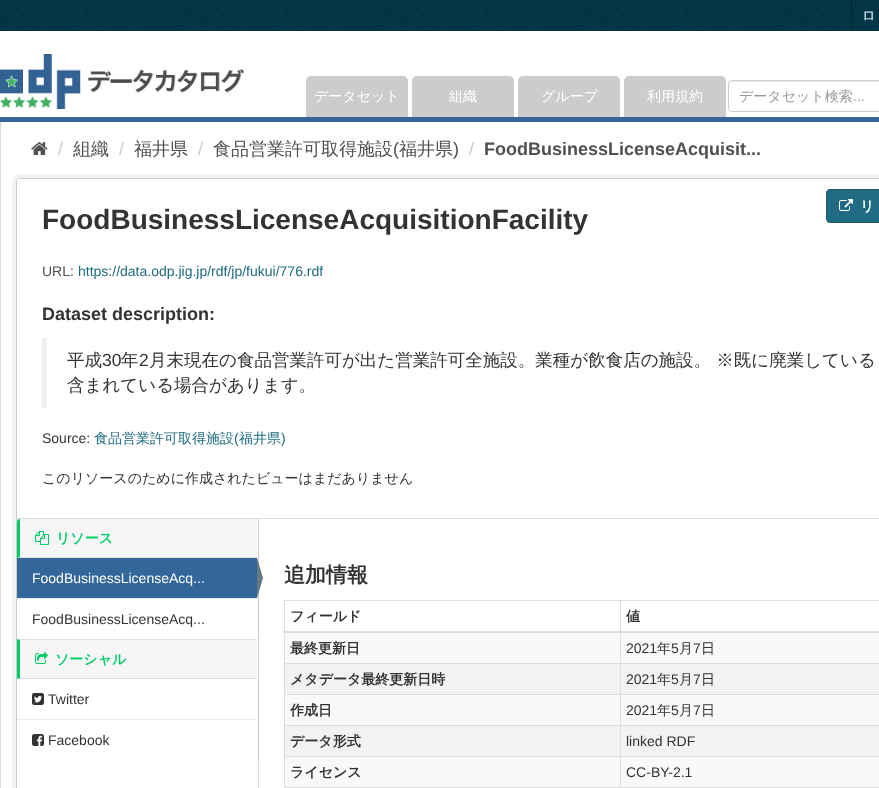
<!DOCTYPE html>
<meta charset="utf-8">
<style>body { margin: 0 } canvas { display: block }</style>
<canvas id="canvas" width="879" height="788"></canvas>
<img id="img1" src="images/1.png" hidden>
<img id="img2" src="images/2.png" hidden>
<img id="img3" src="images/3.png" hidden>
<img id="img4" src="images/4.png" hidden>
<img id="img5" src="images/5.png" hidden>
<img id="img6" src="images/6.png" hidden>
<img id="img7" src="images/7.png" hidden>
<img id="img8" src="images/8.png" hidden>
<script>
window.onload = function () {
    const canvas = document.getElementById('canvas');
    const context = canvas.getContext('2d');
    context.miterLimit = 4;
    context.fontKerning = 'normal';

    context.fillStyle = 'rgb(0, 54, 71)';
    context.fillRect(0, 0, 879, 788);
    context.drawImage(document.getElementById('img1'), 0, 0, 879, 31);
    context.fillStyle = 'rgb(0, 35, 46)';
    context.fillRect(851, 0, 1, 31);
    context.fillStyle = 'rgb(255, 255, 255)';
    context.fillRect(0, 31, 879, 86);
    context.drawImage(document.getElementById('img2'), 0, 54, 244, 55);
    context.fillStyle = 'rgb(204, 204, 204)';
    context.beginPath();
    context.roundRect(306, 76, 102, 41, [5, 5, 0, 0]);
    context.fill();
    context.beginPath();
    context.roundRect(412, 76, 102, 41, [5, 5, 0, 0]);
    context.fill();
    context.beginPath();
    context.roundRect(518, 76, 102, 41, [5, 5, 0, 0]);
    context.fill();
    context.beginPath();
    context.roundRect(624, 76, 102, 41, [5, 5, 0, 0]);
    context.fill();
    context.fillStyle = 'rgb(236, 236, 236)';
    context.beginPath();
    context.moveTo(732, 82);
    context.lineTo(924, 82);
    context.bezierCurveTo(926, 82, 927, 83, 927, 85);
    context.bezierCurveTo(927, 83, 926, 81, 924, 81);
    context.lineTo(732, 81);
    context.bezierCurveTo(730, 81, 729, 83, 729, 85);
    context.bezierCurveTo(729, 83, 730, 82, 732, 82);
    context.closePath();
    context.fill();
    context.beginPath();
    context.roundRect(728.5, 80.5, 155, 31, 3.5);
    context.strokeStyle = 'rgb(204, 204, 204)';
    context.stroke();
    context.fillStyle = 'rgb(51, 102, 153)';
    context.fillRect(0, 117, 879, 5);
    context.fillStyle = 'rgb(255, 255, 255)';
    context.fillRect(1, 122, 878, 666);
    context.fillStyle = 'rgb(221, 221, 221)';
    context.fillRect(0, 122, 1, 666);
    context.drawImage(document.getElementById('img3'), 31, 142, 17, 13);
    context.beginPath();
    context.roundRect(14, 176, 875, 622, 6);
    context.strokeStyle = 'rgb(242, 242, 242)';
    context.lineWidth = 4;
    context.stroke();
    context.fillStyle = 'rgb(255, 255, 255)';
    context.beginPath();
    context.roundRect(16.5, 178.5, 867, 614, 3.5);
    context.fill();
    context.strokeStyle = 'rgb(204, 204, 204)';
    context.lineWidth = 1;
    context.stroke();
    context.beginPath();
    context.moveTo(20, 179);
    context.lineTo(879, 179);
    context.bezierCurveTo(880.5, 179, 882, 180.5, 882, 182);
    context.lineTo(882, 519);
    context.lineTo(17, 519);
    context.lineTo(17, 182);
    context.bezierCurveTo(17, 180.5, 18.5, 179, 20, 179);
    context.closePath();
    context.fill();
    context.fillStyle = 'rgb(221, 221, 221)';
    context.fillRect(17, 518, 862, 1);
    context.fillStyle = 'rgb(32, 107, 130)';
    context.beginPath();
    context.roundRect(826.5, 189.5, 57, 33, 3.5);
    context.fill();
    context.strokeStyle = 'rgb(27, 90, 110)';
    context.stroke();
    context.drawImage(document.getElementById('img4'), 839, 199, 14, 12);
    context.fillStyle = 'rgb(238, 238, 238)';
    context.fillRect(42, 338, 5, 70);
    context.fillStyle = 'rgb(204, 204, 204)';
    context.fillRect(258, 519, 1, 241);
    context.fillStyle = 'rgb(246, 246, 246)';
    context.beginPath();
    context.roundRect(17, 519, 240, 39, [3, 0, 0, 0]);
    context.fill();
    context.fillStyle = 'rgb(221, 221, 221)';
    context.beginPath();
    context.moveTo(257, 558);
    context.lineTo(257, 557);
    context.lineTo(20, 557);
    context.lineTo(17, 558);
    context.closePath();
    context.fill();
    context.fillStyle = 'rgb(0, 204, 102)';
    context.beginPath();
    context.moveTo(20, 519);
    context.lineTo(20, 557);
    context.lineTo(17, 558);
    context.lineTo(17, 522);
    context.bezierCurveTo(17, 520, 18, 519, 20, 519);
    context.closePath();
    context.fill();
    context.drawImage(document.getElementById('img5'), 35, 531, 14, 14);
    context.fillStyle = 'rgb(246, 246, 246)';
    context.fillRect(18, 598, 239, 1);
    context.beginPath();
    context.moveTo(17, 598.5);
    context.lineTo(257, 598.5);
    context.strokeStyle = 'rgb(221, 221, 221)';
    context.setLineDash([1, 1]);
    context.stroke();
    context.fillStyle = 'rgb(51, 102, 153)';
    context.fillRect(17, 558, 240, 40);
    context.fillStyle = 'rgb(100, 122, 130)';
    context.beginPath();
    context.moveTo(257, 598);
    context.lineTo(257, 558);
    context.lineTo(263, 578);
    context.closePath();
    context.fill();
    context.fillStyle = 'rgb(246, 246, 246)';
    context.fillRect(17, 639, 240, 40);
    context.fillStyle = 'rgb(221, 221, 221)';
    context.beginPath();
    context.moveTo(17, 639);
    context.lineTo(257, 639);
    context.lineTo(257, 640);
    context.lineTo(20, 640);
    context.closePath();
    context.fill();
    context.beginPath();
    context.moveTo(257, 679);
    context.lineTo(17, 679);
    context.lineTo(20, 678);
    context.lineTo(257, 678);
    context.closePath();
    context.fill();
    context.fillStyle = 'rgb(0, 204, 102)';
    context.beginPath();
    context.moveTo(17, 679);
    context.lineTo(17, 639);
    context.lineTo(20, 640);
    context.lineTo(20, 678);
    context.closePath();
    context.fill();
    context.drawImage(document.getElementById('img6'), 35, 652, 13, 12);
    context.beginPath();
    context.moveTo(17, 719.5);
    context.lineTo(257, 719.5);
    context.stroke();
    context.drawImage(document.getElementById('img7'), 32, 693, 12, 12);
    context.drawImage(document.getElementById('img8'), 32, 734, 12, 12);
    context.fillStyle = 'rgb(221, 221, 221)';
    context.fillRect(258, 760, 1, 28);
    context.fillRect(284, 600, 595, 1);
    context.fillRect(284, 600, 1, 188);
    context.fillStyle = 'rgb(249, 249, 249)';
    context.fillRect(285, 633, 594, 30);
    context.fillStyle = 'rgb(221, 221, 221)';
    context.fillRect(620, 663, 259, 1);
    context.fillRect(620, 694, 259, 1);
    context.fillStyle = 'rgb(249, 249, 249)';
    context.fillRect(285, 695, 594, 30);
    context.fillStyle = 'rgb(221, 221, 221)';
    context.fillRect(620, 725, 259, 1);
    context.fillRect(620, 756, 259, 1);
    context.fillStyle = 'rgb(249, 249, 249)';
    context.fillRect(285, 757, 594, 30);
    context.fillStyle = 'rgb(221, 221, 221)';
    context.fillRect(284, 787, 595, 1);
    context.fillRect(620, 756, 1, 32);
    context.fillRect(284, 756, 337, 1);
    context.fillRect(620, 725, 1, 32);
    context.fillRect(284, 725, 337, 1);
    context.fillRect(620, 694, 1, 32);
    context.fillRect(284, 694, 337, 1);
    context.fillRect(620, 663, 1, 32);
    context.fillRect(284, 663, 337, 1);
    context.fillRect(620, 600, 1, 64);
    context.fillRect(283, 631, 596, 2);
    context.fillStyle = 'rgb(242, 242, 242)';
    context.fillRect(285, 664, 335, 30);
    context.fillRect(621, 664, 258, 30);
    context.fillRect(285, 726, 335, 30);
    context.fillRect(621, 726, 258, 30);
    context.font = 'bold 13px WenQuanYi Zen Hei';
    context.fillStyle = 'rgb(191, 215, 222)';
    context.fillText('ロ', 862, 20);
    context.font = '500 14px WenQuanYi Zen Hei';
    context.fillStyle = 'rgb(255, 255, 255)';
    context.fillText('データセット', 314, 101);
    context.fillText('組織', 449, 101);
    context.fillText('グループ', 541, 101);
    context.fillText('利用規約', 647, 101);
    context.fillStyle = 'rgb(153, 153, 153)';
    context.fillText('データセット検索', 739, 101);
    context.font = '14px Liberation Sans';
    context.fillText('...', 853, 101);
    context.font = '18px Liberation Sans';
    context.fillStyle = 'rgb(204, 204, 204)';
    context.fillText('/', 58, 155);
    context.font = '500 18px WenQuanYi Zen Hei';
    context.fillStyle = 'rgb(80, 80, 80)';
    context.fillText('組織', 73, 155);
    context.font = '18px Liberation Sans';
    context.fillStyle = 'rgb(204, 204, 204)';
    context.fillText('/', 119, 155);
    context.font = '500 18px WenQuanYi Zen Hei';
    context.fillStyle = 'rgb(80, 80, 80)';
    context.fillText('福井県', 134, 155);
    context.font = '18px Liberation Sans';
    context.fillStyle = 'rgb(204, 204, 204)';
    context.fillText('/', 198, 155);
    context.font = '500 18px WenQuanYi Zen Hei';
    context.fillStyle = 'rgb(80, 80, 80)';
    context.fillText('食品営業許可取得施設', 213, 155);
    context.font = '18px Liberation Sans';
    context.fillText('(', 393, 155);
    context.font = '500 18px WenQuanYi Zen Hei';
    context.fillText('福井県', 399, 155);
    context.font = '18px Liberation Sans';
    context.fillText(')', 453, 155);
    context.fillStyle = 'rgb(204, 204, 204)';
    context.fillText('/', 469, 155);
    context.font = 'bold 18px Liberation Sans';
    context.fillStyle = 'rgb(80, 80, 80)';
    context.fillText('FoodBusinessLicenseAcquisit...', 484, 155);
    context.font = 'bold 14px WenQuanYi Zen Hei';
    context.fillStyle = 'rgb(255, 255, 255)';
    context.fillText('リ', 860, 211);
    context.font = 'bold 28px Liberation Sans';
    context.fillStyle = 'rgb(51, 51, 51)';
    context.fillText('FoodBusinessLicenseAcquisitionFacility', 42, 229);
    context.font = '14px Liberation Sans';
    context.fillStyle = 'rgb(80, 80, 80)';
    context.fillText('URL:', 42, 276);
    context.fillStyle = 'rgb(32, 107, 130)';
    context.fillText('https://data.odp.jig.jp/rdf/jp/fukui/776.rdf', 78, 276);
    context.font = 'bold 18px Liberation Sans';
    context.fillStyle = 'rgb(51, 51, 51)';
    context.fillText('Dataset description:', 42, 320);
    context.font = '500 17.5px WenQuanYi Zen Hei';
    context.fillText('平成', 67, 366);
    context.font = '17.5px Liberation Sans';
    context.fillText('30', 102, 366);
    context.font = '500 17.5px WenQuanYi Zen Hei';
    context.fillText('年', 121, 366);
    context.font = '17.5px Liberation Sans';
    context.fillText('2', 139, 366);
    context.font = '500 17.5px WenQuanYi Zen Hei';
    context.fillText('月末現在の食品営業許可が出た営業許可全施設。業種が飲食店の施設。 ※既に廃業している', 149, 366);
    context.fillText('含まれている場合があります。', 67, 391);
    context.font = '14px Liberation Sans';
    context.fillText('Source:', 42, 443);
    context.font = '500 14px WenQuanYi Zen Hei';
    context.fillStyle = 'rgb(32, 107, 130)';
    context.fillText('食品営業許可取得施設', 94, 443);
    context.font = '14px Liberation Sans';
    context.fillText('(', 234, 443);
    context.font = '500 14px WenQuanYi Zen Hei';
    context.fillText('福井県', 239, 443);
    context.font = '14px Liberation Sans';
    context.fillText(')', 281, 443);
    context.font = '500 14px WenQuanYi Zen Hei';
    context.fillStyle = 'rgb(51, 51, 51)';
    context.fillText('このリソースのために作成されたビューはまだありません', 42, 483);
    context.font = 'bold 14px WenQuanYi Zen Hei';
    context.fillStyle = 'rgb(0, 204, 102)';
    context.fillText('リソース', 56, 543);
    context.font = '14px Liberation Sans';
    context.fillStyle = 'rgb(255, 255, 255)';
    context.fillText('FoodBusinessLicenseAcq...', 32, 583);
    context.fillStyle = 'rgb(51, 51, 51)';
    context.fillText('FoodBusinessLicenseAcq...', 32, 624);
    context.font = 'bold 14px WenQuanYi Zen Hei';
    context.fillStyle = 'rgb(0, 204, 102)';
    context.fillText('ソーシャル', 55, 664);
    context.font = '14px Liberation Sans';
    context.fillStyle = 'rgb(51, 51, 51)';
    context.fillText('Twitter', 48, 704);
    context.fillText('Facebook', 48, 745);
    context.font = 'bold 21px WenQuanYi Zen Hei';
    context.fillText('追加情報', 284, 582);
    context.font = 'bold 14px WenQuanYi Zen Hei';
    context.fillText('フィールド', 290, 621);
    context.fillText('値', 626, 621);
    context.fillText('最終更新日', 290, 653);
    context.font = '14px Liberation Sans';
    context.fillText('2021', 626, 653);
    context.font = '500 14px WenQuanYi Zen Hei';
    context.fillText('年', 657, 653);
    context.font = '14px Liberation Sans';
    context.fillText('5', 671, 653);
    context.font = '500 14px WenQuanYi Zen Hei';
    context.fillText('月', 679, 653);
    context.font = '14px Liberation Sans';
    context.fillText('7', 693, 653);
    context.font = '500 14px WenQuanYi Zen Hei';
    context.fillText('日', 701, 653);
    context.font = 'bold 14px WenQuanYi Zen Hei';
    context.fillText('メタデータ最終更新日時', 290, 684);
    context.font = '14px Liberation Sans';
    context.fillText('2021', 626, 684);
    context.font = '500 14px WenQuanYi Zen Hei';
    context.fillText('年', 657, 684);
    context.font = '14px Liberation Sans';
    context.fillText('5', 671, 684);
    context.font = '500 14px WenQuanYi Zen Hei';
    context.fillText('月', 679, 684);
    context.font = '14px Liberation Sans';
    context.fillText('7', 693, 684);
    context.font = '500 14px WenQuanYi Zen Hei';
    context.fillText('日', 701, 684);
    context.font = 'bold 14px WenQuanYi Zen Hei';
    context.fillText('作成日', 290, 715);
    context.font = '14px Liberation Sans';
    context.fillText('2021', 626, 715);
    context.font = '500 14px WenQuanYi Zen Hei';
    context.fillText('年', 657, 715);
    context.font = '14px Liberation Sans';
    context.fillText('5', 671, 715);
    context.font = '500 14px WenQuanYi Zen Hei';
    context.fillText('月', 679, 715);
    context.font = '14px Liberation Sans';
    context.fillText('7', 693, 715);
    context.font = '500 14px WenQuanYi Zen Hei';
    context.fillText('日', 701, 715);
    context.font = 'bold 14px WenQuanYi Zen Hei';
    context.fillText('データ形式', 290, 746);
    context.font = '14px Liberation Sans';
    context.fillText('linked RDF', 626, 746);
    context.font = 'bold 14px WenQuanYi Zen Hei';
    context.fillText('ライセンス', 290, 777);
    context.font = '14px Liberation Sans';
    context.fillText('CC-BY-2.1', 626, 777);
};
</script>
